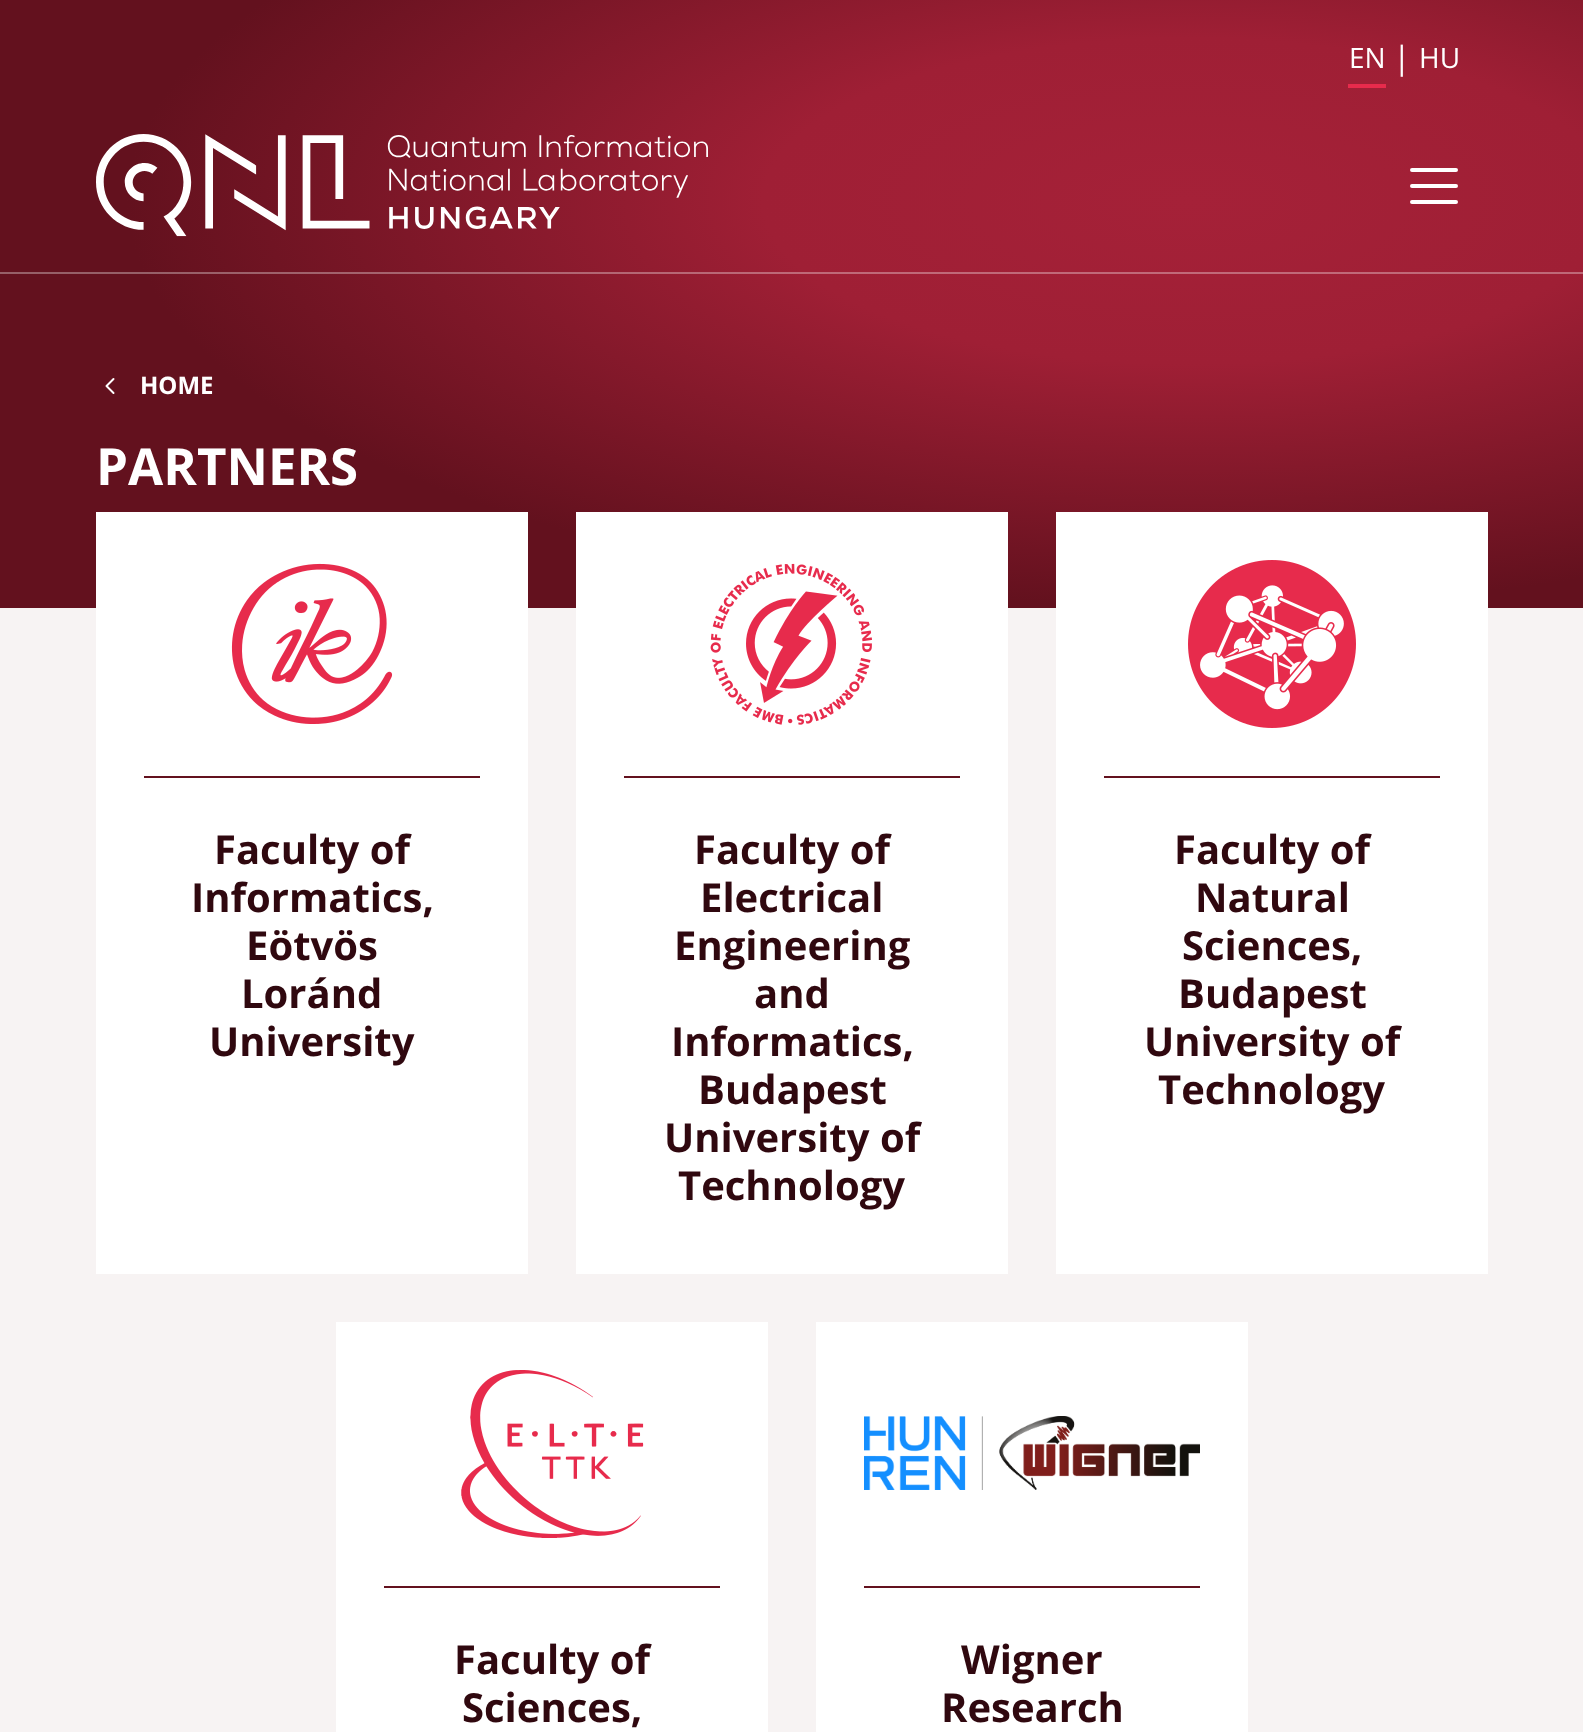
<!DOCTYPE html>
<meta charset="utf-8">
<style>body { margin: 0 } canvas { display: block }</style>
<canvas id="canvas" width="1583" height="1732"></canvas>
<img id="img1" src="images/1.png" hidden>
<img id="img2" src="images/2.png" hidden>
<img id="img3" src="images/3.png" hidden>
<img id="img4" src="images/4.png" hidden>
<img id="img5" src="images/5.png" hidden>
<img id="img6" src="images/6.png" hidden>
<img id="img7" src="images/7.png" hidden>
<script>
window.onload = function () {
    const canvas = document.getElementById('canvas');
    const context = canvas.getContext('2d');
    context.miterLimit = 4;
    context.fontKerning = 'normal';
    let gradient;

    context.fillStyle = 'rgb(255, 255, 255)';
    context.fillRect(0, 0, 1583, 1732);
    gradient = context.createRadialGradient(1188, 523.98, 0, 1188, 523.98, 1061);
    gradient.addColorStop(0, 'rgb(165, 33, 56)');
    gradient.addColorStop(0.4, 'rgb(159, 31, 53)');
    gradient.addColorStop(1, 'rgb(99, 17, 30)');
    context.fillStyle = gradient;
    context.beginPath();
    context.rect(0, 0, 1583, 608);
    context.save();
    context.clip();
    context.scale(1, 407 / 1061);
    context.fillRect(0, 0, 1583, 4516);
    context.restore();
    gradient = context.createRadialGradient(1188, 523.98, 0, 1188, 523.98, 1061);
    gradient.addColorStop(0, 'rgb(195, 106, 122)');
    gradient.addColorStop(0.4, 'rgb(191, 105, 120)');
    gradient.addColorStop(1, 'rgb(150, 96, 104)');
    context.fillStyle = gradient;
    context.beginPath();
    context.rect(0, 272, 1583, 2);
    context.save();
    context.clip();
    context.scale(1, 407 / 1061);
    context.fillRect(0, 0, 1583, 4516);
    context.restore();
    context.fillStyle = 'rgb(231, 43, 76)';
    context.fillRect(1348, 84, 38, 4);
    context.drawImage(document.getElementById('img1'), 96, 134, 612, 103);
    context.beginPath();
    context.moveTo(1412, 170);
    context.lineTo(1456, 170);
    context.moveTo(1412, 186);
    context.lineTo(1456, 186);
    context.moveTo(1412, 202);
    context.lineTo(1456, 202);
    context.strokeStyle = 'rgb(255, 255, 255)';
    context.lineWidth = 4;
    context.lineCap = 'round';
    context.stroke();
    context.drawImage(document.getElementById('img2'), 105, 378, 10, 16);
    context.fillStyle = 'rgb(247, 243, 243)';
    context.fillRect(0, 608, 1583, 1124);
    context.fillStyle = 'rgb(255, 255, 255)';
    context.fillRect(96, 512, 432, 762);
    context.drawImage(document.getElementById('img3'), 231, 563, 162, 161);
    context.fillStyle = 'rgb(99, 17, 30)';
    context.fillRect(144, 776, 336, 2);
    context.fillStyle = 'rgb(255, 255, 255)';
    context.fillRect(576, 512, 432, 762);
    context.drawImage(document.getElementById('img4'), 710, 563, 162, 162);
    context.fillStyle = 'rgb(99, 17, 30)';
    context.fillRect(624, 776, 336, 2);
    context.fillStyle = 'rgb(255, 255, 255)';
    context.fillRect(1056, 512, 432, 762);
    context.drawImage(document.getElementById('img5'), 1188, 560, 168, 168);
    context.fillStyle = 'rgb(99, 17, 30)';
    context.fillRect(1104, 776, 336, 2);
    context.fillStyle = 'rgb(255, 255, 255)';
    context.fillRect(336, 1322, 432, 410);
    context.drawImage(document.getElementById('img6'), 461, 1370, 183, 168);
    context.fillStyle = 'rgb(99, 17, 30)';
    context.fillRect(384, 1586, 336, 2);
    context.fillStyle = 'rgb(255, 255, 255)';
    context.fillRect(816, 1322, 432, 410);
    context.drawImage(document.getElementById('img7'), 864, 1416, 336, 74);
    context.fillStyle = 'rgb(99, 17, 30)';
    context.fillRect(864, 1586, 336, 2);
    context.font = '28px Open Sans';
    context.fillStyle = 'rgb(255, 255, 255)';
    context.fillText('EN', 1349, 68);
    context.font = '32px Open Sans';
    context.fillText('|', 1393, 69);
    context.font = '28px Open Sans';
    context.fillText('HU', 1419, 68);
    context.font = 'bold 24px Open Sans';
    context.fillText('HOME', 140, 394);
    context.font = 'bold 51px Open Sans';
    context.fillText('PARTNERS', 96, 485);
    context.font = 'bold 40px Open Sans';
    context.fillStyle = 'rgb(48, 8, 15)';
    context.fillText('Faculty of', 214, 864);
    context.fillText('Informatics,', 191, 912);
    context.fillText('Eötvös', 246, 960);
    context.fillText('Loránd', 241, 1008);
    context.fillText('University', 209, 1056);
    context.fillText('Faculty of', 694, 864);
    context.fillText('Electrical', 700, 912);
    context.fillText('Engineering', 674, 960);
    context.fillText('and', 754, 1008);
    context.fillText('Informatics,', 671, 1056);
    context.fillText('Budapest', 698, 1104);
    context.fillText('University of', 664, 1152);
    context.fillText('Technology', 678, 1200);
    context.fillText('Faculty of', 1174, 864);
    context.fillText('Natural', 1195, 912);
    context.fillText('Sciences,', 1182, 960);
    context.fillText('Budapest', 1178, 1008);
    context.fillText('University of', 1144, 1056);
    context.fillText('Technology', 1158, 1104);
    context.fillText('Faculty of', 454, 1674);
    context.fillText('Sciences,', 462, 1722);
    context.fillText('Wigner', 961, 1674);
    context.fillText('Research', 941, 1722);
};
</script>
